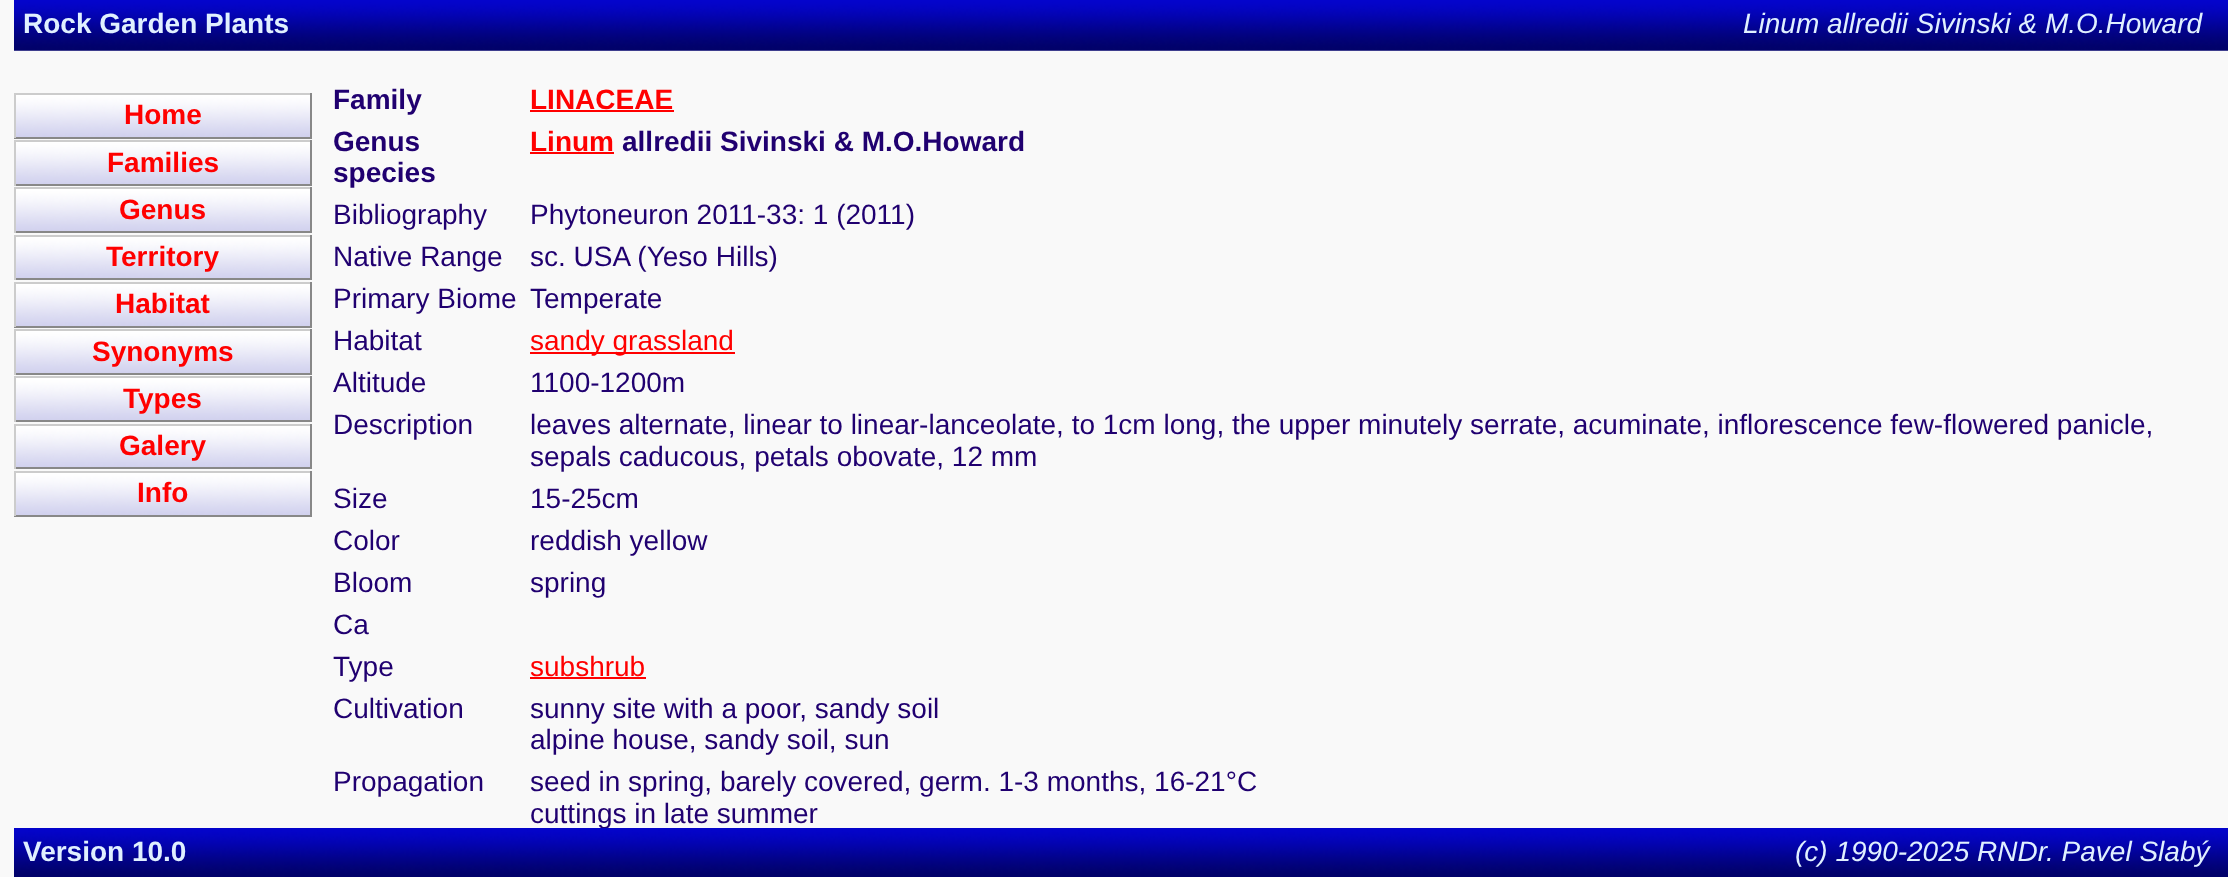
<!DOCTYPE html>
<meta charset="utf-8">
<style>body { margin: 0 } canvas { display: block }</style>
<canvas id="canvas" width="2228" height="877"></canvas>
<img id="img1" src="images/1.png" hidden>
<img id="img2" src="images/2.png" hidden>
<img id="img3" src="images/3.png" hidden>
<img id="img4" src="images/4.png" hidden>
<img id="img5" src="images/5.png" hidden>
<img id="img6" src="images/6.png" hidden>
<img id="img7" src="images/7.png" hidden>
<img id="img8" src="images/8.png" hidden>
<img id="img9" src="images/9.png" hidden>
<img id="img10" src="images/10.png" hidden>
<img id="img11" src="images/11.png" hidden>
<script>
window.onload = function () {
    const canvas = document.getElementById('canvas');
    const context = canvas.getContext('2d');
    context.miterLimit = 4;
    context.fontKerning = 'normal';

    context.fillStyle = 'rgb(249, 249, 249)';
    context.fillRect(0, 0, 2228, 877);
    context.drawImage(document.getElementById('img1'), 14, 0, 2214, 51);
    context.drawImage(document.getElementById('img2'), 16, 95, 294, 42);
    context.fillStyle = 'rgb(204, 204, 204)';
    context.fillRect(14, 93, 298, 2);
    context.fillStyle = 'rgb(136, 136, 136)';
    context.fillRect(310, 93, 2, 45);
    context.fillRect(14, 137, 298, 2);
    context.fillStyle = 'rgb(204, 204, 204)';
    context.fillRect(14, 93, 2, 45);
    context.drawImage(document.getElementById('img3'), 16, 142, 294, 42);
    context.fillRect(14, 140, 298, 2);
    context.fillStyle = 'rgb(136, 136, 136)';
    context.fillRect(310, 140, 2, 46);
    context.fillRect(14, 184, 298, 2);
    context.fillStyle = 'rgb(204, 204, 204)';
    context.fillRect(14, 140, 2, 46);
    context.drawImage(document.getElementById('img4'), 16, 189, 294, 42);
    context.fillRect(14, 187, 298, 2);
    context.fillStyle = 'rgb(136, 136, 136)';
    context.fillRect(310, 187, 2, 46);
    context.fillRect(14, 231, 298, 2);
    context.fillStyle = 'rgb(204, 204, 204)';
    context.fillRect(14, 187, 2, 46);
    context.drawImage(document.getElementById('img5'), 16, 237, 294, 41);
    context.fillRect(14, 235, 298, 2);
    context.fillStyle = 'rgb(136, 136, 136)';
    context.fillRect(310, 235, 2, 45);
    context.fillRect(14, 278, 298, 2);
    context.fillStyle = 'rgb(204, 204, 204)';
    context.fillRect(14, 235, 2, 45);
    context.drawImage(document.getElementById('img6'), 16, 284, 294, 42);
    context.fillRect(14, 282, 298, 2);
    context.fillStyle = 'rgb(136, 136, 136)';
    context.fillRect(310, 282, 2, 45);
    context.fillRect(14, 326, 298, 2);
    context.fillStyle = 'rgb(204, 204, 204)';
    context.fillRect(14, 282, 2, 45);
    context.drawImage(document.getElementById('img7'), 16, 331, 294, 42);
    context.fillRect(14, 329, 298, 2);
    context.fillStyle = 'rgb(136, 136, 136)';
    context.fillRect(310, 329, 2, 46);
    context.fillRect(14, 373, 298, 2);
    context.fillStyle = 'rgb(204, 204, 204)';
    context.fillRect(14, 329, 2, 46);
    context.drawImage(document.getElementById('img8'), 16, 378, 294, 42);
    context.fillRect(14, 376, 298, 2);
    context.fillStyle = 'rgb(136, 136, 136)';
    context.fillRect(310, 376, 2, 46);
    context.fillRect(14, 420, 298, 2);
    context.fillStyle = 'rgb(204, 204, 204)';
    context.fillRect(14, 376, 2, 46);
    context.drawImage(document.getElementById('img9'), 16, 426, 294, 41);
    context.fillRect(14, 424, 298, 2);
    context.fillStyle = 'rgb(136, 136, 136)';
    context.fillRect(310, 424, 2, 45);
    context.fillRect(14, 467, 298, 2);
    context.fillStyle = 'rgb(204, 204, 204)';
    context.fillRect(14, 424, 2, 45);
    context.drawImage(document.getElementById('img10'), 16, 473, 294, 42);
    context.fillRect(14, 471, 298, 2);
    context.fillStyle = 'rgb(136, 136, 136)';
    context.fillRect(310, 471, 2, 45);
    context.fillRect(14, 515, 298, 2);
    context.fillStyle = 'rgb(204, 204, 204)';
    context.fillRect(14, 471, 2, 45);
    context.fillStyle = 'rgb(255, 0, 0)';
    context.fillRect(530, 110, 144, 2);
    context.fillRect(530, 152, 84, 2);
    context.fillRect(530, 352, 205, 2);
    context.fillRect(530, 677, 116, 2);
    context.font = 'bold 28px Liberation Sans';
    context.fillStyle = 'rgb(224, 240, 255)';
    context.fillText('Rock Garden Plants', 23, 33);
    context.font = 'italic 28px Liberation Sans';
    context.fillText('Linum allredii Sivinski & M.O.Howard', 1743, 33);
    context.font = 'bold 28px Liberation Sans';
    context.fillStyle = 'rgb(255, 0, 0)';
    context.fillText('Home', 124, 124);
    context.fillText('Families', 107, 172);
    context.fillText('Genus', 119, 219);
    context.fillText('Territory', 106, 266);
    context.fillText('Habitat', 115, 313);
    context.fillText('Synonyms', 92, 361);
    context.fillText('Types', 123, 408);
    context.fillText('Galery', 119, 455);
    context.fillText('Info', 137, 502);
    context.fillStyle = 'rgb(32, 0, 112)';
    context.fillText('Family', 333, 109);
    context.fillStyle = 'rgb(255, 0, 0)';
    context.fillText('LINACEAE', 530, 109);
    context.fillStyle = 'rgb(32, 0, 112)';
    context.fillText('Genus', 333, 151);
    context.fillText('species', 333, 182);
    context.fillStyle = 'rgb(255, 0, 0)';
    context.fillText('Linum', 530, 151);
    context.fillStyle = 'rgb(32, 0, 112)';
    context.fillText('allredii Sivinski & M.O.Howard', 622, 151);
    context.font = '28px Liberation Sans';
    context.fillText('Bibliography', 333, 224);
    context.fillText('Phytoneuron 2011-33: 1 (2011)', 530, 224);
    context.fillText('Native Range', 333, 266);
    context.fillText('sc. USA (Yeso Hills)', 530, 266);
    context.fillText('Primary Biome', 333, 308);
    context.fillText('Temperate', 530, 308);
    context.fillText('Habitat', 333, 350);
    context.fillStyle = 'rgb(255, 0, 0)';
    context.fillText('sandy grassland', 530, 350);
    context.fillStyle = 'rgb(32, 0, 112)';
    context.fillText('Altitude', 333, 392);
    context.fillText('1100-1200m', 530, 392);
    context.fillText('Description', 333, 434);
    context.fillText('leaves alternate, linear to linear-lanceolate, to 1cm long, the upper minutely serrate, acuminate, inflorescence few-flowered panicle,', 530, 434);
    context.fillText('sepals caducous, petals obovate, 12 mm', 530, 466);
    context.fillText('Size', 333, 508);
    context.fillText('15-25cm', 530, 508);
    context.fillText('Color', 333, 550);
    context.fillText('reddish yellow', 530, 550);
    context.fillText('Bloom', 333, 592);
    context.fillText('spring', 530, 592);
    context.fillText('Ca', 333, 634);
    context.fillText('Type', 333, 676);
    context.fillStyle = 'rgb(255, 0, 0)';
    context.fillText('subshrub', 530, 676);
    context.fillStyle = 'rgb(32, 0, 112)';
    context.fillText('Cultivation', 333, 718);
    context.fillText('sunny site with a poor, sandy soil', 530, 718);
    context.fillText('alpine house, sandy soil, sun', 530, 749);
    context.fillText('Propagation', 333, 791);
    context.fillText('seed in spring, barely covered, germ. 1-3 months, 16-21°C', 530, 791);
    context.fillText('cuttings in late summer', 530, 823);
    context.drawImage(document.getElementById('img11'), 14, 828, 2214, 49);
    context.font = 'bold 28px Liberation Sans';
    context.fillStyle = 'rgb(224, 240, 255)';
    context.fillText('Version 10.0', 23, 861);
    context.font = 'italic 28px Liberation Sans';
    context.fillText('(c) 1990-2025 RNDr. Pavel Slabý', 1795, 861);
};
</script>
